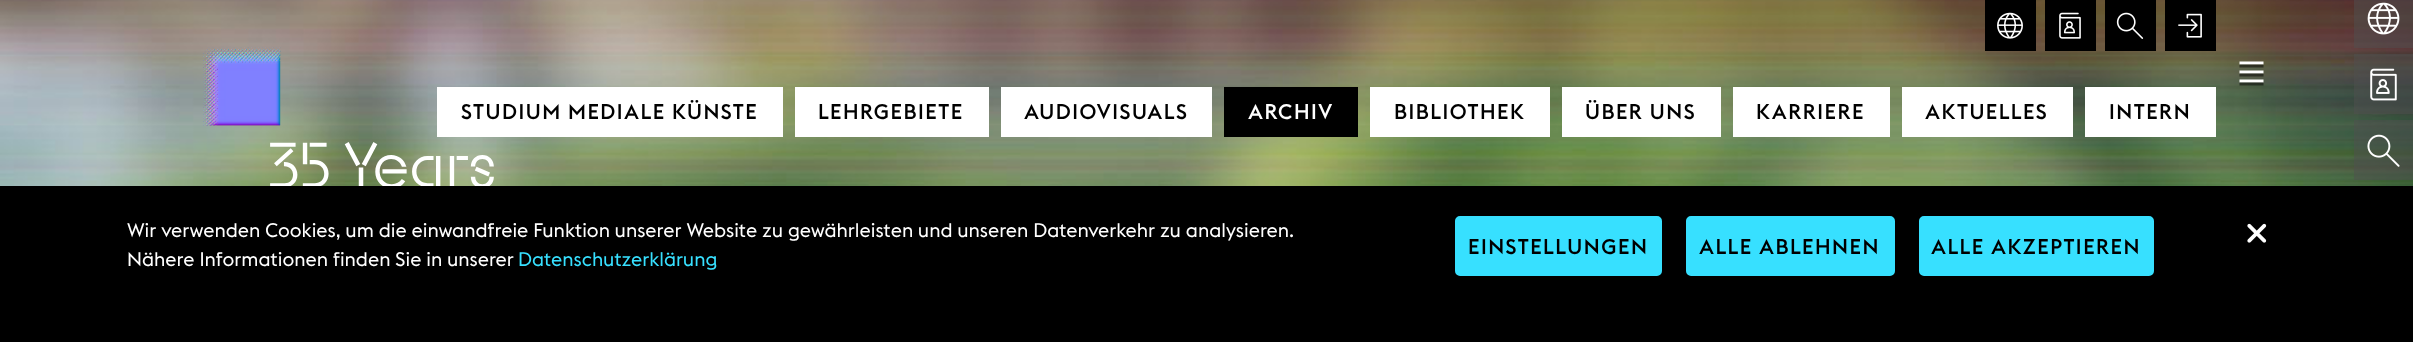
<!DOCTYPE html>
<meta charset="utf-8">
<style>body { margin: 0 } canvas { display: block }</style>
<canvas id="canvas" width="2413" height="342"></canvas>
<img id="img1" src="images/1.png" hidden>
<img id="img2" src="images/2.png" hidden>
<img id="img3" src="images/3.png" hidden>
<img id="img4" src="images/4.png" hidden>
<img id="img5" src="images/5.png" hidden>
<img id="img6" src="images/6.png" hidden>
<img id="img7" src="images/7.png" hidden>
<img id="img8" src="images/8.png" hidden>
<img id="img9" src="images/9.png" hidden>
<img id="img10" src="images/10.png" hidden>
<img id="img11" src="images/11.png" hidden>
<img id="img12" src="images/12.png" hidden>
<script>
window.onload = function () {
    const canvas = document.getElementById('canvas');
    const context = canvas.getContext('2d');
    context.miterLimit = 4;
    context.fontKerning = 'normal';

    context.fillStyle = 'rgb(255, 255, 255)';
    context.fillRect(0, 0, 2413, 342);
    context.drawImage(document.getElementById('img1'), 0, 0, 2413, 186);
    context.fillStyle = 'rgb(0, 0, 0)';
    context.fillRect(1985, 0, 51, 51);
    context.drawImage(document.getElementById('img2'), 1997, 12, 26, 27);
    context.fillRect(2045, 0, 51, 51);
    context.drawImage(document.getElementById('img3'), 2059, 12, 22, 27);
    context.fillRect(2105, 0, 51, 51);
    context.drawImage(document.getElementById('img4'), 2116, 12, 28, 27);
    context.fillRect(2165, 0, 51, 51);
    context.drawImage(document.getElementById('img5'), 2178, 13, 24, 25);
    context.drawImage(document.getElementById('img6'), 203, 47, 78, 79);
    context.drawImage(document.getElementById('img7'), 270, 142, 224, 44);
    context.drawImage(document.getElementById('img8'), 2239, 61, 25, 25);
    context.fillStyle = 'rgb(255, 255, 255)';
    context.fillRect(437, 87, 346, 50);
    context.fillRect(795, 87, 194, 50);
    context.fillRect(1001, 87, 211, 50);
    context.fillStyle = 'rgb(0, 0, 0)';
    context.fillRect(1224, 87, 134, 50);
    context.fillStyle = 'rgb(255, 255, 255)';
    context.fillRect(1370, 87, 180, 50);
    context.fillRect(1562, 87, 159, 50);
    context.fillRect(1733, 87, 157, 50);
    context.fillRect(1902, 87, 171, 50);
    context.fillRect(2085, 87, 131, 50);
    context.fillStyle = 'rgba(80, 80, 80, 0.5)';
    context.fillRect(2354, 0, 59, 48);
    context.drawImage(document.getElementById('img9'), 2367, 2, 33, 33);
    context.fillRect(2354, 54, 59, 60);
    context.drawImage(document.getElementById('img10'), 2370, 68, 27, 33);
    context.fillRect(2354, 120, 59, 60);
    context.drawImage(document.getElementById('img11'), 2367, 134, 33, 33);
    context.fillStyle = 'rgb(0, 0, 0)';
    context.fillRect(0, 186, 2413, 156);
    context.drawImage(document.getElementById('img12'), 2247, 223, 20, 20);
    context.fillStyle = 'rgb(55, 224, 255)';
    context.beginPath();
    context.roundRect(1456, 217, 205, 58, 4);
    context.fill();
    context.strokeStyle = 'rgb(55, 224, 255)';
    context.lineWidth = 2;
    context.stroke();
    context.beginPath();
    context.roundRect(1687, 217, 207, 58, 4);
    context.fill();
    context.stroke();
    context.beginPath();
    context.roundRect(1920, 217, 233, 58, 4);
    context.fill();
    context.stroke();
    context.letterSpacing = '1.5px';
    context.font = '500 21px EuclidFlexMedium';
    context.fillStyle = 'rgb(0, 0, 0)';
    context.fillText('STUDIUM MEDIALE KÜNSTE', 461, 119);
    context.fillText('LEHRGEBIETE', 818, 119);
    context.fillText('AUDIOVISUALS', 1024, 119);
    context.fillStyle = 'rgb(255, 255, 255)';
    context.fillText('ARCHIV', 1248, 119);
    context.fillStyle = 'rgb(0, 0, 0)';
    context.fillText('BIBLIOTHEK', 1394, 119);
    context.fillText('ÜBER UNS', 1585, 119);
    context.fillText('KARRIERE', 1756, 119);
    context.fillText('AKTUELLES', 1925, 119);
    context.fillText('INTERN', 2109, 119);
    context.letterSpacing = '0px';
    context.font = '19.5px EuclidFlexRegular';
    context.fillStyle = 'rgb(255, 255, 255)';
    context.fillText('Wir verwenden Cookies, um die einwandfreie Funktion unserer Website zu gewährleisten und unseren Datenverkehr zu analysieren.', 127, 237);
    context.fillText('Nähere Informationen finden Sie in unserer', 127, 266);
    context.fillStyle = 'rgb(55, 224, 255)';
    context.fillText('Datenschutzerklärung', 518, 266);
    context.letterSpacing = '1.5px';
    context.font = '500 21px EuclidFlexMedium';
    context.fillStyle = 'rgb(0, 0, 0)';
    context.fillText('EINSTELLUNGEN', 1468, 254);
    context.fillText('ALLE ABLEHNEN', 1699, 254);
    context.fillText('ALLE AKZEPTIEREN', 1931, 254);
};
</script>
